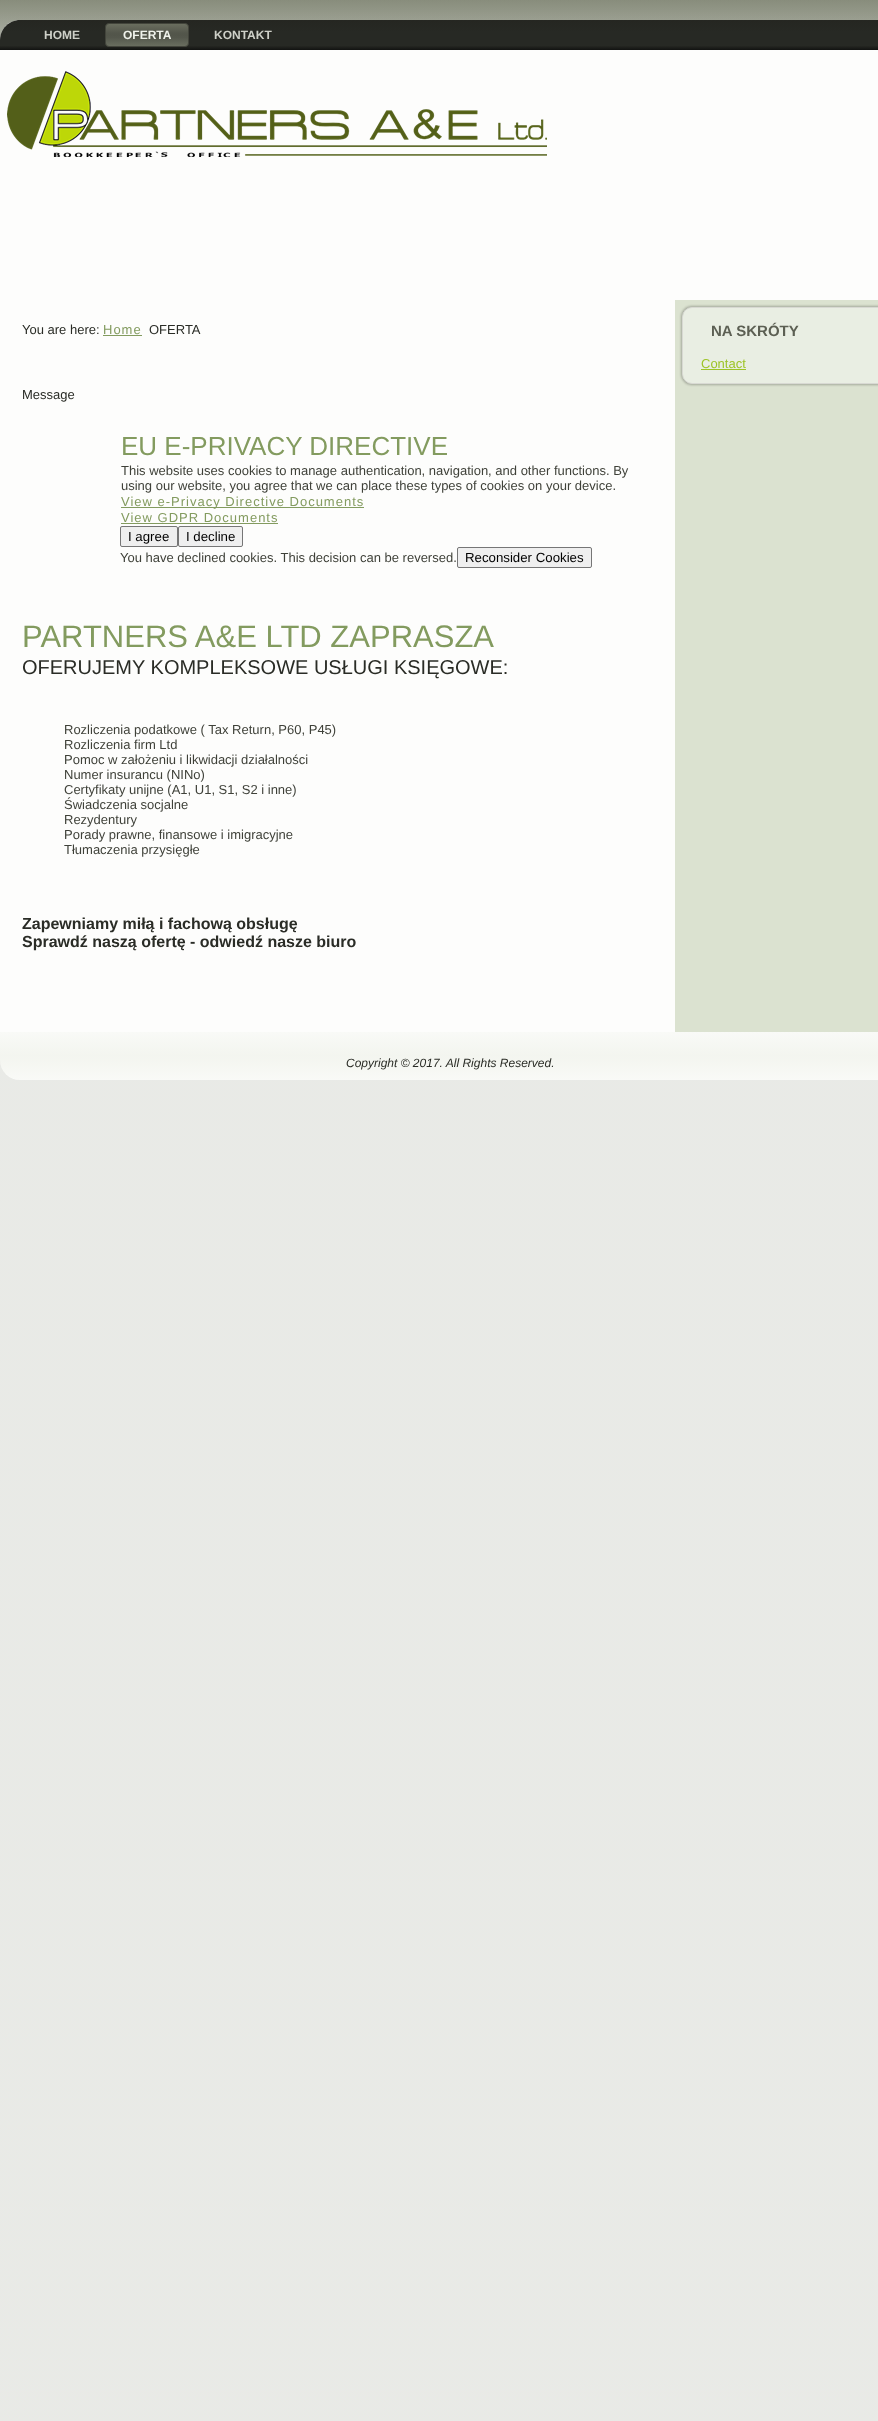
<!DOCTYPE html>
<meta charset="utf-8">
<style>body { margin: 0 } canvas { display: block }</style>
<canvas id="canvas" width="878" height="2421"></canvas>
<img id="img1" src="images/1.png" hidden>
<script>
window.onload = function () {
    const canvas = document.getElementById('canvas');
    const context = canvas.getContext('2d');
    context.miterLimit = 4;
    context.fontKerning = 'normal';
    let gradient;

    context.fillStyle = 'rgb(255, 255, 255)';
    context.fillRect(0, 0, 878, 2421);
    gradient = context.createLinearGradient(439, 0, 439, 2421);
    gradient.addColorStop(0, 'rgb(139, 144, 127)');
    gradient.addColorStop(0.04, 'rgb(225, 227, 222)');
    context.fillStyle = gradient;
    context.fillRect(0, 0, 878, 2421);
    gradient = context.createLinearGradient(439, 0, 439, 2421);
    gradient.addColorStop(0, 'rgba(117, 121, 105, 0.14)');
    gradient.addColorStop(0.04, 'rgba(247, 247, 246, 0.35)');
    context.fillStyle = gradient;
    context.fillRect(0, 0, 878, 2421);
    context.fillStyle = 'rgb(253, 253, 252)';
    context.beginPath();
    context.roundRect(0, 20, 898, 1060, 20);
    context.fill();
    gradient = context.createLinearGradient(450, 20, 450, 50);
    gradient.addColorStop(0, 'rgb(37, 38, 33)');
    gradient.addColorStop(0.4, 'rgb(39, 41, 36)');
    gradient.addColorStop(0.85, 'rgb(39, 41, 36)');
    gradient.addColorStop(1, 'rgb(18, 19, 17)');
    context.fillStyle = gradient;
    context.beginPath();
    context.moveTo(20, 20);
    context.lineTo(878, 20);
    context.bezierCurveTo(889, 20, 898, 29, 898, 40);
    context.lineTo(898, 50);
    context.lineTo(0, 50);
    context.lineTo(0, 40);
    context.bezierCurveTo(0, 29, 9, 20, 20, 20);
    context.closePath();
    context.fill();
    gradient = context.createLinearGradient(147, 23, 147, 47);
    gradient.addColorStop(0, 'rgb(108, 112, 97)');
    gradient.addColorStop(0.4, 'rgb(84, 87, 76)');
    gradient.addColorStop(0.5, 'rgb(82, 85, 74)');
    gradient.addColorStop(0.6, 'rgb(84, 87, 76)');
    gradient.addColorStop(1, 'rgb(108, 112, 97)');
    context.fillStyle = gradient;
    context.beginPath();
    context.roundRect(105.5, 23.5, 83, 23, 3.5);
    context.fill();
    context.strokeStyle = 'rgb(66, 68, 59)';
    context.stroke();
    context.drawImage(document.getElementById('img1'), 7, 71, 540, 86);
    context.fillStyle = 'rgb(131, 155, 95)';
    context.fillRect(103, 335, 39, 1);
    context.fillRect(121, 507, 243, 1);
    context.fillRect(121, 523, 157, 1);
    context.fillStyle = 'rgb(239, 239, 239)';
    context.beginPath();
    context.roundRect(120.5, 526.5, 57, 20, 1.5);
    context.fill();
    context.strokeStyle = 'rgb(118, 118, 118)';
    context.stroke();
    context.beginPath();
    context.roundRect(178.5, 526.5, 64, 20, 1.5);
    context.fill();
    context.stroke();
    context.beginPath();
    context.roundRect(457.5, 547.5, 134, 20, 1.5);
    context.fill();
    context.stroke();
    context.fillStyle = 'rgb(219, 226, 208)';
    context.fillRect(675, 300, 203, 732);
    context.fillStyle = 'rgba(0, 0, 0, 0.25)';
    context.filter = 'blur(1px)';
    context.beginPath();
    context.roundRect(681, 306, 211, 79, 11);
    context.fill();
    context.filter = 'none';
    context.fillStyle = 'rgb(233, 238, 227)';
    context.beginPath();
    context.roundRect(682.5, 307.5, 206, 76, 9.5);
    context.fill();
    context.strokeStyle = 'rgb(216, 217, 211)';
    context.stroke();
    context.fillStyle = 'rgb(157, 196, 39)';
    context.fillRect(701, 369, 45, 1);
    gradient = context.createLinearGradient(450, 1032, 450, 1080);
    gradient.addColorStop(0, 'rgba(233, 238, 227, 0.2)');
    gradient.addColorStop(0.4, 'rgba(209, 218, 195, 0.2)');
    gradient.addColorStop(0.5, 'rgba(204, 214, 189, 0.2)');
    gradient.addColorStop(0.6, 'rgba(209, 218, 195, 0.2)');
    gradient.addColorStop(1, 'rgba(233, 238, 227, 0.2)');
    context.fillStyle = gradient;
    context.beginPath();
    context.moveTo(0, 1032);
    context.lineTo(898, 1032);
    context.lineTo(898, 1060);
    context.bezierCurveTo(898, 1071, 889, 1080, 878, 1080);
    context.lineTo(20, 1080);
    context.bezierCurveTo(9, 1080, 0, 1071, 0, 1060);
    context.closePath();
    context.fill();
    context.font = 'bold 12px Liberation Sans';
    context.fillStyle = 'rgb(206, 208, 200)';
    context.fillText('HOME', 44, 39);
    context.fillStyle = 'rgb(240, 243, 236)';
    context.fillText('OFERTA', 123, 39);
    context.fillStyle = 'rgb(206, 208, 200)';
    context.fillText('KONTAKT', 214, 39);
    context.font = '13px Liberation Sans';
    context.fillStyle = 'rgb(42, 44, 38)';
    context.fillText('You are here:', 22, 334);
    context.letterSpacing = '1px';
    context.fillStyle = 'rgb(131, 155, 95)';
    context.fillText('Home', 103, 334);
    context.letterSpacing = '0px';
    context.fillStyle = 'rgb(42, 44, 38)';
    context.fillText('OFERTA', 149, 334);
    context.fillText('Message', 22, 399);
    context.font = '26px Liberation Sans';
    context.fillStyle = 'rgb(131, 155, 95)';
    context.fillText('EU E-PRIVACY DIRECTIVE', 121, 455);
    context.font = '13px Liberation Sans';
    context.fillStyle = 'rgb(63, 65, 57)';
    context.fillText('This website uses cookies to manage authentication, navigation, and other functions. By', 121, 475);
    context.fillText('using our website, you agree that we can place these types of cookies on your device.', 121, 490);
    context.letterSpacing = '1px';
    context.fillStyle = 'rgb(131, 155, 95)';
    context.fillText('View e-Privacy Directive Documents', 121, 506);
    context.fillText('View GDPR Documents', 121, 522);
    context.letterSpacing = '0px';
    context.font = '13.25px Liberation Sans';
    context.fillStyle = 'rgb(0, 0, 0)';
    context.fillText('I agree', 128, 541);
    context.fillText('I decline', 186, 541);
    context.font = '13px Liberation Sans';
    context.fillStyle = 'rgb(63, 65, 57)';
    context.fillText('You have declined cookies. This decision can be reversed.', 120, 562);
    context.font = '13.25px Liberation Sans';
    context.fillStyle = 'rgb(0, 0, 0)';
    context.fillText('Reconsider Cookies', 465, 562);
    context.font = '31px Liberation Sans';
    context.fillStyle = 'rgb(131, 155, 95)';
    context.fillText('PARTNERS A&E LTD ZAPRASZA', 22, 647);
    context.font = '20px Liberation Sans';
    context.fillStyle = 'rgb(42, 44, 38)';
    context.fillText('OFERUJEMY KOMPLEKSOWE USŁUGI KSIĘGOWE:', 22, 674);
    context.font = '13px Liberation Sans';
    context.fillStyle = 'rgb(63, 65, 57)';
    context.fillText('Rozliczenia podatkowe ( Tax Return, P60, P45)', 64, 734);
    context.fillText('Rozliczenia firm Ltd', 64, 749);
    context.fillText('Pomoc w założeniu i likwidacji działalności', 64, 764);
    context.fillText('Numer insurancu (NINo)', 64, 779);
    context.fillText('Certyfikaty unijne (A1, U1, S1, S2 i inne)', 64, 794);
    context.fillText('Świadczenia socjalne', 64, 809);
    context.fillText('Rezydentury', 64, 824);
    context.fillText('Porady prawne, finansowe i imigracyjne', 64, 839);
    context.fillText('Tłumaczenia przysięgłe', 64, 854);
    context.font = 'bold 16px Liberation Sans';
    context.fillStyle = 'rgb(42, 44, 38)';
    context.fillText('Zapewniamy miłą i fachową obsługę', 22, 929);
    context.fillText('Sprawdź naszą ofertę - odwiedź nasze biuro', 22, 947);
    context.font = 'bold 15px Liberation Sans';
    context.fillStyle = 'rgb(92, 95, 83)';
    context.fillText('NA SKRÓTY', 711, 336);
    context.font = '13px Liberation Sans';
    context.fillStyle = 'rgb(157, 196, 39)';
    context.fillText('Contact', 701, 368);
    context.font = 'italic 12px Liberation Sans';
    context.fillStyle = 'rgb(42, 44, 38)';
    context.fillText('Copyright © 2017. All Rights Reserved.', 346, 1067);
};
</script>
